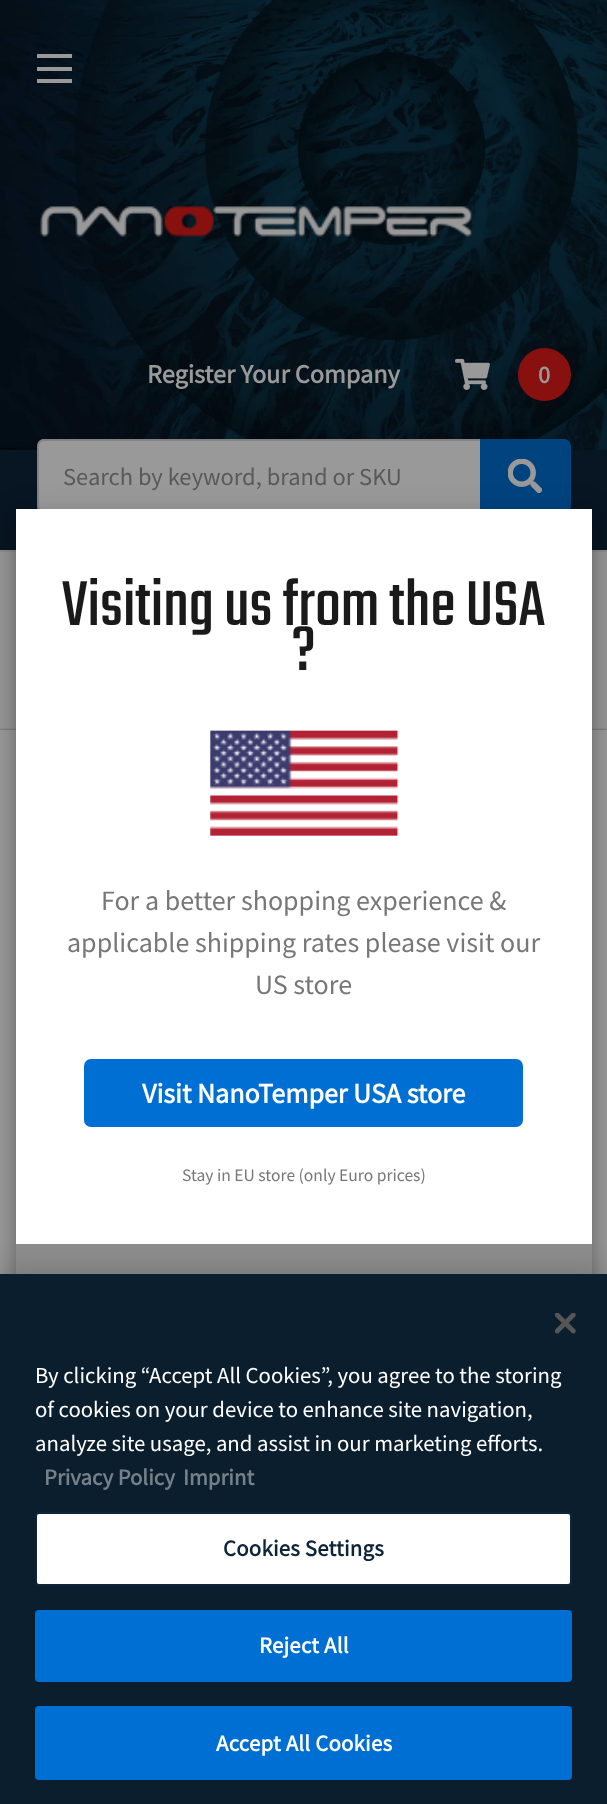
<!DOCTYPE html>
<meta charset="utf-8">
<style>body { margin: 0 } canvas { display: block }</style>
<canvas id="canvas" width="607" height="1804"></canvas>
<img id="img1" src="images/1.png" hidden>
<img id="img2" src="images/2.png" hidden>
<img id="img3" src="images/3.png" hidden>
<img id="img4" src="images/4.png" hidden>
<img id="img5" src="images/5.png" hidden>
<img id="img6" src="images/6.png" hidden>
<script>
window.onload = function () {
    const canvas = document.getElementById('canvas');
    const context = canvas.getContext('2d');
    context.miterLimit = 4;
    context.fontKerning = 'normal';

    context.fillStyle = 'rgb(150, 150, 150)';
    context.fillRect(0, 0, 607, 1804);
    context.fillStyle = 'rgb(8, 22, 35)';
    context.fillRect(0, 449, 607, 101);
    context.drawImage(document.getElementById('img1'), 0, 0, 607, 450);
    context.fillStyle = 'rgb(141, 141, 141)';
    context.fillRect(0, 550, 607, 2);
    context.fillStyle = 'rgb(153, 153, 153)';
    context.fillRect(37, 67, 35, 4);
    context.fillRect(37, 54, 35, 4);
    context.fillRect(37, 79, 35, 4);
    context.drawImage(document.getElementById('img2'), 39, 206, 434, 31);
    context.drawImage(document.getElementById('img3'), 455, 358, 35, 32);
    context.fillStyle = 'rgb(136, 17, 16)';
    context.beginPath();
    context.arc(544.5, 374.5, 26.5, 0, 2 * Math.PI);
    context.fill();
    context.save();
    context.beginPath();
    context.roundRect(37, 439, 534, 74, 7);
    context.clip();
    context.fillStyle = 'rgb(153, 153, 153)';
    context.beginPath();
    context.roundRect(37, 439, 528, 74, [7, 0, 0, 7]);
    context.fill();
    context.restore();
    context.beginPath();
    context.roundRect(38, 440, 526, 72, [6, 0, 0, 6]);
    context.strokeStyle = 'rgb(130, 130, 130)';
    context.lineWidth = 2;
    context.stroke();
    context.fillStyle = 'rgb(0, 67, 127)';
    context.beginPath();
    context.roundRect(480, 439, 91, 74, [0, 7, 7, 0]);
    context.fill();
    context.drawImage(document.getElementById('img4'), 508, 459, 34, 34);
    context.fillStyle = 'rgba(0, 0, 0, 0.5)';
    context.filter = 'blur(1px)';
    context.beginPath();
    context.rect(0, 730, 607, 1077);
    context.fill();
    context.filter = 'none';
    context.fillStyle = 'rgb(153, 153, 153)';
    context.fillRect(0, 730, 607, 544);
    context.fillStyle = 'rgba(0, 0, 0, 0.19)';
    context.filter = 'blur(17.5px)';
    context.beginPath();
    context.rect(16, 520, 576, 787);
    context.fill();
    context.filter = 'none';
    context.fillStyle = 'rgba(0, 0, 0, 0.2)';
    context.filter = 'blur(7px)';
    context.beginPath();
    context.rect(16, 516, 576, 788);
    context.fill();
    context.filter = 'none';
    context.fillStyle = 'rgb(255, 255, 255)';
    context.fillRect(16, 509, 576, 735);
    context.drawImage(document.getElementById('img5'), 210, 730, 189, 106);
    context.fillStyle = 'rgb(0, 111, 211)';
    context.beginPath();
    context.roundRect(85, 1060, 437, 66, 6);
    context.fill();
    context.strokeStyle = 'rgb(0, 111, 211)';
    context.stroke();
    context.fillStyle = 'rgb(141, 141, 141)';
    context.fillRect(16, 1244, 576, 30);
    context.fillStyle = 'rgba(0, 0, 0, 0.2)';
    context.filter = 'blur(16px)';
    context.beginPath();
    context.rect(0, 1274, 607, 530);
    context.fill();
    context.filter = 'none';
    context.fillStyle = 'rgb(11, 30, 46)';
    context.fillRect(0, 1274, 607, 530);
    context.drawImage(document.getElementById('img6'), 555, 1313, 21, 21);
    context.fillStyle = 'rgb(255, 255, 255)';
    context.beginPath();
    context.roundRect(36, 1513, 535, 72, 3);
    context.fill();
    context.strokeStyle = 'rgb(14, 37, 57)';
    context.stroke();
    context.fillStyle = 'rgb(0, 111, 211)';
    context.beginPath();
    context.roundRect(36, 1611, 535, 70, 3);
    context.fill();
    context.strokeStyle = 'rgb(0, 111, 211)';
    context.stroke();
    context.beginPath();
    context.roundRect(36, 1707, 535, 72, 3);
    context.fill();
    context.stroke();
    context.font = 'bold 26.25px Source Sans Pro';
    context.fillStyle = 'rgb(153, 153, 153)';
    context.fillText('Register Your Company', 147, 383);
    context.font = 'bold 24.5px Source Sans Pro';
    context.fillText('0', 538, 383);
    context.font = '24.5px Source Sans Pro';
    context.fillStyle = 'rgb(89, 89, 89)';
    context.fillText('Search by keyword, brand or SKU', 63, 485);
    context.font = '70px Teko';
    context.fillStyle = 'rgb(26, 26, 26)';
    context.fillText('Visiting us from the USA', 62, 625);
    context.fillText('?', 292, 670);
    context.font = '28px Source Sans Pro';
    context.fillStyle = 'rgb(119, 119, 119)';
    context.fillText('For a better shopping experience &', 101, 910);
    context.fillText('applicable shipping rates please visit our', 67, 952);
    context.fillText('US store', 255, 994);
    context.font = 'bold 28px Source Sans Pro';
    context.fillStyle = 'rgb(255, 255, 255)';
    context.fillText('Visit NanoTemper USA store', 142, 1103);
    context.font = '17.5px Source Sans Pro';
    context.fillStyle = 'rgb(119, 119, 119)';
    context.fillText('Stay in EU store (only Euro prices)', 182, 1181);
    context.font = '22.75px Source Sans Pro';
    context.fillStyle = 'rgb(255, 255, 255)';
    context.fillText('By clicking “Accept All Cookies”, you agree to the storing', 35, 1383);
    context.fillText('of cookies on your device to enhance site navigation,', 35, 1417);
    context.fillText('analyze site usage, and assist in our marketing efforts.', 35, 1451);
    context.font = 'bold 22.75px Source Sans Pro';
    context.fillStyle = 'rgb(118, 128, 137)';
    context.fillText('Privacy Policy', 44, 1485);
    context.fillText('Imprint', 183, 1485);
    context.letterSpacing = '0.25px';
    context.fillStyle = 'rgb(14, 37, 57)';
    context.fillText('Cookies Settings', 223, 1556);
    context.fillStyle = 'rgb(255, 255, 255)';
    context.fillText('Reject All', 259, 1653);
    context.fillText('Accept All Cookies', 216, 1751);
};
</script>
